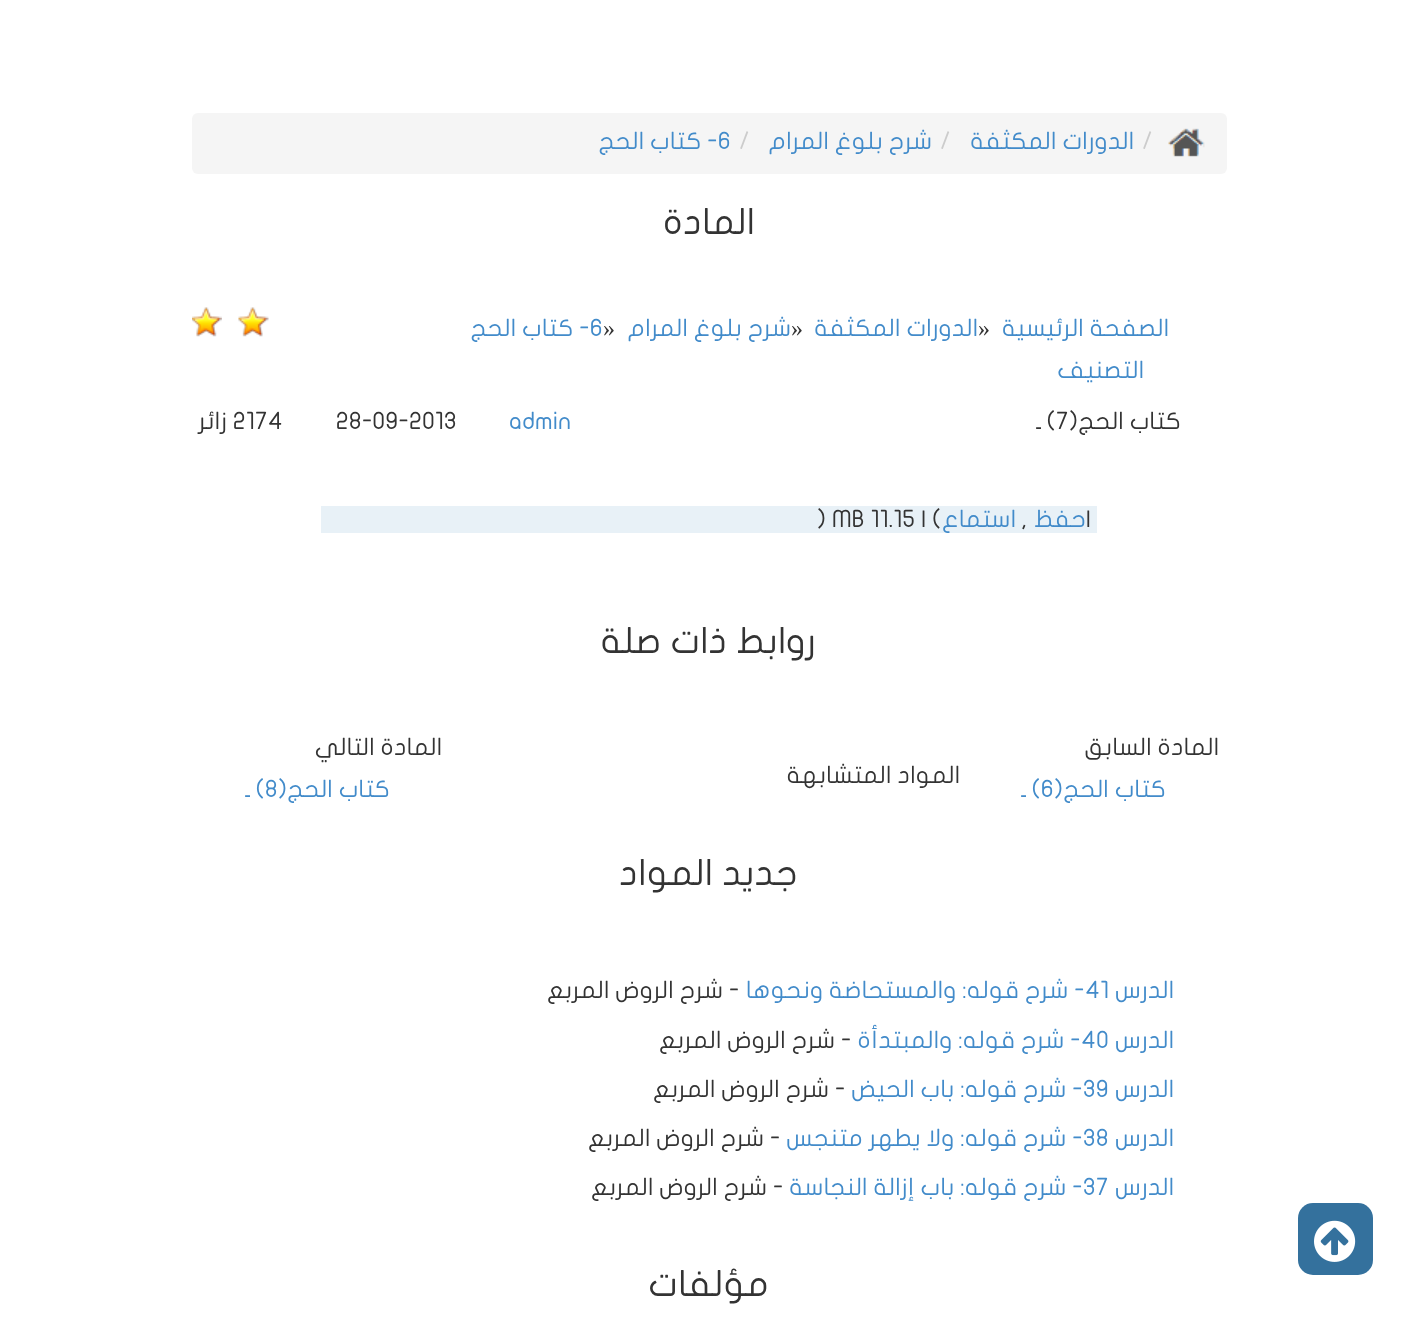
<!DOCTYPE html>
<meta charset="utf-8">
<style>body { margin: 0 } canvas { display: block }</style>
<canvas id="canvas" width="1417" height="1319"></canvas>
<img id="img1" src="images/1.png" hidden>
<img id="img2" src="images/2.png" hidden>
<img id="img3" src="images/3.png" hidden>
<img id="img4" src="images/4.png" hidden>
<script>
window.onload = function () {
    const canvas = document.getElementById('canvas');
    const context = canvas.getContext('2d');
    context.miterLimit = 4;
    context.fontKerning = 'normal';

    context.fillStyle = 'rgb(255, 255, 255)';
    context.fillRect(0, 0, 1417, 1319);
    context.fillStyle = 'rgb(52, 113, 157)';
    context.beginPath();
    context.roundRect(1298, 1203, 75, 72, 15);
    context.fill();
    context.drawImage(document.getElementById('img1'), 1314, 1220, 42, 42);
    context.fillStyle = 'rgb(245, 245, 245)';
    context.beginPath();
    context.roundRect(192, 113, 1035, 61, 6);
    context.fill();
    context.drawImage(document.getElementById('img2'), 1168, 128, 37, 29);
    context.drawImage(document.getElementById('img3'), 238, 307, 31, 30);
    context.drawImage(document.getElementById('img4'), 192, 307, 30, 30);
    context.fillStyle = 'rgb(232, 241, 247)';
    context.fillRect(321, 506, 776, 27);
    context.font = '24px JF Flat';
    context.fillStyle = 'rgb(204, 204, 204)';
    context.fillText('/', 1142, 149);
    context.direction = 'rtl';
    context.fillStyle = 'rgb(66, 139, 202)';
    context.fillText('الدورات المكثفة', 1134, 149);
    context.direction = 'ltr';
    context.fillStyle = 'rgb(204, 204, 204)';
    context.fillText('/', 940, 149);
    context.direction = 'rtl';
    context.fillStyle = 'rgb(66, 139, 202)';
    context.fillText('شرح بلوغ المرام', 932, 149);
    context.direction = 'ltr';
    context.fillStyle = 'rgb(204, 204, 204)';
    context.fillText('/', 739, 149);
    context.fillStyle = 'rgb(66, 139, 202)';
    context.fillText('6', 718, 149);
    context.direction = 'rtl';
    context.fillText('- كتاب الحج', 718, 149);
    context.font = '36px JF Flat';
    context.fillStyle = 'rgb(51, 51, 51)';
    context.fillText('المادة', 755, 234);
    context.font = '24px JF Flat';
    context.fillStyle = 'rgb(66, 139, 202)';
    context.fillText('الصفحة الرئيسية', 1169, 336);
    context.direction = 'ltr';
    context.font = '24px Liberation Serif';
    context.fillStyle = 'rgb(51, 51, 51)';
    context.fillText('»', 978, 336);
    context.direction = 'rtl';
    context.font = '24px JF Flat';
    context.fillStyle = 'rgb(66, 139, 202)';
    context.fillText('الدورات المكثفة', 978, 336);
    context.direction = 'ltr';
    context.font = '24px Liberation Serif';
    context.fillStyle = 'rgb(51, 51, 51)';
    context.fillText('»', 791, 336);
    context.direction = 'rtl';
    context.font = '24px JF Flat';
    context.fillStyle = 'rgb(66, 139, 202)';
    context.fillText('شرح بلوغ المرام', 791, 336);
    context.direction = 'ltr';
    context.font = '24px Liberation Serif';
    context.fillStyle = 'rgb(51, 51, 51)';
    context.fillText('»', 603, 336);
    context.font = '24px JF Flat';
    context.fillStyle = 'rgb(66, 139, 202)';
    context.fillText('6', 590, 336);
    context.direction = 'rtl';
    context.fillText('- كتاب الحج', 590, 336);
    context.fillText('التصنيف', 1144, 378);
    context.fillStyle = 'rgb(51, 51, 51)';
    context.fillText('كتاب الحج(', 1181, 429);
    context.direction = 'ltr';
    context.fillText('7', 1056, 429);
    context.direction = 'rtl';
    context.fillText(') ـ', 1056, 429);
    context.direction = 'ltr';
    context.fillStyle = 'rgb(66, 139, 202)';
    context.fillText('admin', 509, 429);
    context.fillStyle = 'rgb(51, 51, 51)';
    context.fillText('28-09-2013', 336, 429);
    context.fillText('2174', 233, 429);
    context.direction = 'rtl';
    context.fillText('زائر', 227, 429);
    context.direction = 'ltr';
    context.fillText('|', 1086, 527);
    context.direction = 'rtl';
    context.fillStyle = 'rgb(66, 139, 202)';
    context.fillText('حفظ', 1086, 527);
    context.direction = 'ltr';
    context.fillStyle = 'rgb(51, 51, 51)';
    context.fillText(',', 1021, 527);
    context.direction = 'rtl';
    context.fillStyle = 'rgb(66, 139, 202)';
    context.fillText('استماع', 1016, 527);
    context.direction = 'ltr';
    context.fillStyle = 'rgb(51, 51, 51)';
    context.fillText(') MB 11.15 | (', 817, 527);
    context.direction = 'rtl';
    context.font = '36px JF Flat';
    context.fillText('روابط ذات صلة', 816, 653);
    context.font = '24px JF Flat';
    context.fillText('المادة السابق', 1219, 755);
    context.fillStyle = 'rgb(66, 139, 202)';
    context.fillText('كتاب الحج(', 1166, 797);
    context.direction = 'ltr';
    context.fillText('6', 1041, 797);
    context.direction = 'rtl';
    context.fillText(') ـ', 1041, 797);
    context.fillStyle = 'rgb(51, 51, 51)';
    context.fillText('المواد المتشابهة', 960, 783);
    context.fillText('المادة التالي', 442, 755);
    context.fillStyle = 'rgb(66, 139, 202)';
    context.fillText('كتاب الحج(', 390, 797);
    context.direction = 'ltr';
    context.fillText('8', 265, 797);
    context.direction = 'rtl';
    context.fillText(') ـ', 265, 797);
    context.font = '36px JF Flat';
    context.fillStyle = 'rgb(51, 51, 51)';
    context.fillText('جديد', 798, 885);
    context.fillText('المواد', 713, 885);
    context.font = '24px JF Flat';
    context.fillStyle = 'rgb(66, 139, 202)';
    context.fillText('الدرس', 1174, 998);
    context.direction = 'ltr';
    context.fillText('41', 1085, 998);
    context.direction = 'rtl';
    context.fillText('- شرح قوله: والمستحاضة ونحوها', 1085, 998);
    context.direction = 'ltr';
    context.fillStyle = 'rgb(51, 51, 51)';
    context.fillText('-', 729, 998);
    context.direction = 'rtl';
    context.fillText('شرح الروض المربع', 723, 998);
    context.fillStyle = 'rgb(66, 139, 202)';
    context.fillText('الدرس', 1174, 1048);
    context.direction = 'ltr';
    context.fillText('40', 1081, 1048);
    context.direction = 'rtl';
    context.fillText('- شرح قوله: والمبتدأة', 1081, 1048);
    context.direction = 'ltr';
    context.fillStyle = 'rgb(51, 51, 51)';
    context.fillText('-', 841, 1048);
    context.direction = 'rtl';
    context.fillText('شرح الروض المربع', 835, 1048);
    context.fillStyle = 'rgb(66, 139, 202)';
    context.fillText('الدرس', 1174, 1097);
    context.direction = 'ltr';
    context.fillText('39', 1083, 1097);
    context.direction = 'rtl';
    context.fillText('- شرح قوله: باب الحيض', 1083, 1097);
    context.direction = 'ltr';
    context.fillStyle = 'rgb(51, 51, 51)';
    context.fillText('-', 835, 1097);
    context.direction = 'rtl';
    context.fillText('شرح الروض المربع', 829, 1097);
    context.fillStyle = 'rgb(66, 139, 202)';
    context.fillText('الدرس', 1174, 1146);
    context.direction = 'ltr';
    context.fillText('38', 1083, 1146);
    context.direction = 'rtl';
    context.fillText('- شرح قوله: ولا يطهر متنجس', 1083, 1146);
    context.direction = 'ltr';
    context.fillStyle = 'rgb(51, 51, 51)';
    context.fillText('-', 770, 1146);
    context.direction = 'rtl';
    context.fillText('شرح الروض المربع', 764, 1146);
    context.fillStyle = 'rgb(66, 139, 202)';
    context.fillText('الدرس', 1174, 1195);
    context.direction = 'ltr';
    context.fillText('37', 1083, 1195);
    context.direction = 'rtl';
    context.fillText('- شرح قوله: باب إزالة النجاسة', 1083, 1195);
    context.direction = 'ltr';
    context.fillStyle = 'rgb(51, 51, 51)';
    context.fillText('-', 773, 1195);
    context.direction = 'rtl';
    context.fillText('شرح الروض المربع', 767, 1195);
    context.font = '36px JF Flat';
    context.fillText('مؤلفات', 769, 1296);
};
</script>
